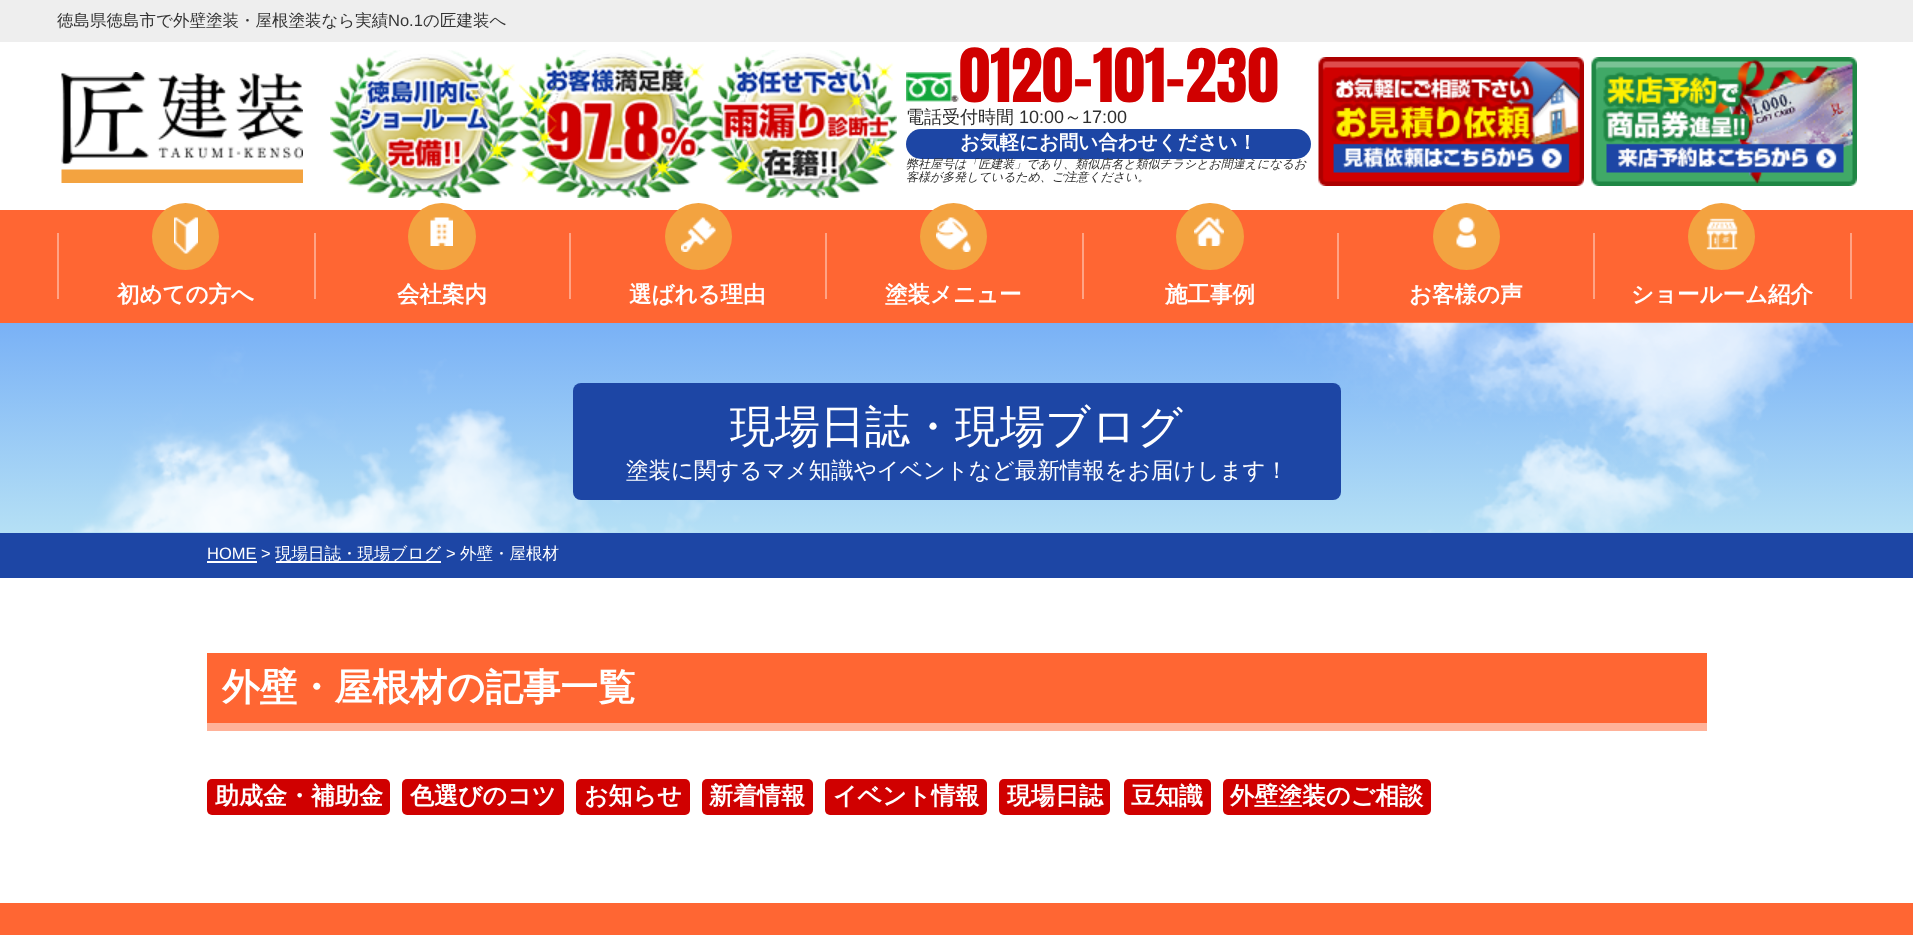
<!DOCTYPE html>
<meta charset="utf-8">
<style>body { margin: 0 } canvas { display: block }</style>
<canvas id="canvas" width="1913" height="935"></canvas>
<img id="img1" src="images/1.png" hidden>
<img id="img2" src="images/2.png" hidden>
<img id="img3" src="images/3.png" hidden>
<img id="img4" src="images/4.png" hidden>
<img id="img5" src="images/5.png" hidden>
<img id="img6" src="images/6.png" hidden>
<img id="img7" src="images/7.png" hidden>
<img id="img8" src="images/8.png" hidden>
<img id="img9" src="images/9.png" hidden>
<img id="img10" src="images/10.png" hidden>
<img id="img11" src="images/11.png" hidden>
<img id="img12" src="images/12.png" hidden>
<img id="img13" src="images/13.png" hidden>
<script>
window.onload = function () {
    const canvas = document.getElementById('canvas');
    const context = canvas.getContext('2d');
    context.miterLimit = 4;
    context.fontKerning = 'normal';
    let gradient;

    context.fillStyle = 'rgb(255, 255, 255)';
    context.fillRect(0, 0, 1913, 935);
    context.fillStyle = 'rgb(238, 238, 238)';
    context.fillRect(0, 0, 1913, 42);
    context.drawImage(document.getElementById('img1'), 61, 72, 242, 111);
    context.drawImage(document.getElementById('img2'), 330, 50, 567, 148);
    context.drawImage(document.getElementById('img3'), 906, 72, 53, 30);
    context.fillStyle = 'rgb(29, 70, 165)';
    context.beginPath();
    context.roundRect(906, 129, 405, 30, 15);
    context.fill();
    context.drawImage(document.getElementById('img4'), 1318, 57, 266, 129);
    context.drawImage(document.getElementById('img5'), 1591, 57, 266, 129);
    context.fillStyle = 'rgb(255, 102, 51)';
    context.fillRect(0, 210, 1913, 113);
    context.fillStyle = 'rgb(255, 163, 133)';
    context.fillRect(314, 233, 2, 66);
    context.fillRect(57, 233, 2, 66);
    context.fillStyle = 'rgb(243, 163, 64)';
    context.beginPath();
    context.arc(185.5, 236.5, 33.5, 0, 2 * Math.PI);
    context.fill();
    context.drawImage(document.getElementById('img6'), 174, 217, 24, 37);
    context.fillStyle = 'rgb(255, 163, 133)';
    context.fillRect(569, 233, 2, 66);
    context.fillStyle = 'rgb(243, 163, 64)';
    context.beginPath();
    context.roundRect(408, 203, 68, 67, 33.5);
    context.fill();
    context.drawImage(document.getElementById('img7'), 430, 217, 23, 29);
    context.fillStyle = 'rgb(255, 163, 133)';
    context.fillRect(825, 233, 2, 66);
    context.fillStyle = 'rgb(243, 163, 64)';
    context.beginPath();
    context.arc(698.5, 236.5, 33.5, 0, 2 * Math.PI);
    context.fill();
    context.drawImage(document.getElementById('img8'), 681, 217, 35, 35);
    context.fillStyle = 'rgb(255, 163, 133)';
    context.fillRect(1082, 233, 2, 66);
    context.fillStyle = 'rgb(243, 163, 64)';
    context.beginPath();
    context.arc(953.5, 236.5, 33.5, 0, 2 * Math.PI);
    context.fill();
    context.drawImage(document.getElementById('img9'), 936, 217, 35, 35);
    context.fillStyle = 'rgb(255, 163, 133)';
    context.fillRect(1337, 233, 2, 66);
    context.fillStyle = 'rgb(243, 163, 64)';
    context.beginPath();
    context.roundRect(1176, 203, 68, 67, 33.5);
    context.fill();
    context.drawImage(document.getElementById('img10'), 1194, 217, 30, 29);
    context.fillStyle = 'rgb(255, 163, 133)';
    context.fillRect(1593, 233, 2, 66);
    context.fillStyle = 'rgb(243, 163, 64)';
    context.beginPath();
    context.arc(1466.5, 236.5, 33.5, 0, 2 * Math.PI);
    context.fill();
    context.drawImage(document.getElementById('img11'), 1456, 217, 20, 31);
    context.fillStyle = 'rgb(255, 163, 133)';
    context.fillRect(1850, 233, 2, 66);
    context.fillStyle = 'rgb(243, 163, 64)';
    context.beginPath();
    context.arc(1721.5, 236.5, 33.5, 0, 2 * Math.PI);
    context.fill();
    context.drawImage(document.getElementById('img12'), 1706, 218, 32, 33);
    gradient = context.createLinearGradient(957, 533, 957, 323);
    gradient.addColorStop(0, 'rgb(181, 224, 245)');
    gradient.addColorStop(1, 'rgb(121, 177, 246)');
    context.fillStyle = gradient;
    context.fillRect(0, 323, 1913, 210);
    context.drawImage(document.getElementById('img13'), 73, 322, 1770, 211);
    context.fillStyle = 'rgb(29, 70, 165)';
    context.beginPath();
    context.roundRect(573, 383, 768, 117, 8);
    context.fill();
    context.fillRect(0, 533, 1913, 45);
    context.fillStyle = 'rgb(255, 255, 255)';
    context.fillRect(207, 561, 50, 2);
    context.fillRect(276, 561, 165, 2);
    context.fillStyle = 'rgb(255, 102, 51)';
    context.fillRect(207, 653, 1500, 70);
    context.fillStyle = 'rgb(255, 178, 153)';
    context.fillRect(207, 723, 1500, 8);
    context.fillStyle = 'rgb(208, 0, 0)';
    context.beginPath();
    context.roundRect(207, 779, 183, 36, 5);
    context.fill();
    context.beginPath();
    context.roundRect(402, 779, 162, 36, 5);
    context.fill();
    context.beginPath();
    context.roundRect(576, 779, 114, 36, 5);
    context.fill();
    context.beginPath();
    context.roundRect(702, 779, 111, 36, 5);
    context.fill();
    context.beginPath();
    context.roundRect(825, 779, 162, 36, 5);
    context.fill();
    context.beginPath();
    context.roundRect(999, 779, 111, 36, 5);
    context.fill();
    context.beginPath();
    context.roundRect(1124, 779, 87, 36, 5);
    context.fill();
    context.beginPath();
    context.roundRect(1223, 779, 208, 36, 5);
    context.fill();
    context.fillStyle = 'rgb(255, 102, 51)';
    context.fillRect(0, 903, 1913, 32);
    context.font = '500 16.5px WenQuanYi Zen Hei';
    context.fillStyle = 'rgb(51, 51, 51)';
    context.fillText('徳島県徳島市で外壁塗装・屋根塗装なら実績', 57, 26);
    context.font = '16.5px Liberation Sans';
    context.fillText('No.1', 388, 26);
    context.font = '500 16.5px WenQuanYi Zen Hei';
    context.fillText('の匠建装へ', 423, 26);
    context.font = '63px Anton';
    context.fillStyle = 'rgb(208, 0, 0)';
    context.fillText('0120-101-230', 959, 102);
    context.font = '500 18px WenQuanYi Zen Hei';
    context.fillStyle = 'rgb(45, 45, 45)';
    context.fillText('電話受付時間', 906, 123);
    context.font = '18px Liberation Sans';
    context.fillText('10:00', 1019, 123);
    context.font = '500 18px WenQuanYi Zen Hei';
    context.fillText('～', 1064, 123);
    context.font = '18px Liberation Sans';
    context.fillText('17:00', 1082, 123);
    context.font = 'bold 19.5px WenQuanYi Zen Hei';
    context.fillStyle = 'rgb(255, 255, 255)';
    context.fillText('お気軽にお問い合わせください！', 960, 149);
    context.font = 'italic 500 12px WenQuanYi Zen Hei';
    context.fillStyle = 'rgb(45, 45, 45)';
    context.fillText('弊社屋号は「匠建装」であり、類似店名と類似チラシとお間違えになるお', 906, 168);
    context.fillText('客様が多発しているため、ご注意ください。', 906, 181);
    context.font = 'bold 22.5px WenQuanYi Zen Hei';
    context.fillStyle = 'rgb(255, 255, 255)';
    context.fillText('初めての方へ', 117, 302);
    context.fillText('会社案内', 397, 302);
    context.fillText('選ばれる理由', 629, 302);
    context.fillText('塗装メニュー', 885, 302);
    context.fillText('施工事例', 1165, 302);
    context.fillText('お客様の声', 1409, 302);
    context.fillText('ショールーム紹介', 1631, 302);
    context.font = '500 45px WenQuanYi Zen Hei';
    context.fillText('現場日誌・現場ブログ', 730, 442);
    context.font = '500 22.5px WenQuanYi Zen Hei';
    context.fillText('塗装に関するマメ知識やイベントなど最新情報をお届けします！', 626, 478);
    context.font = '16.5px Liberation Sans';
    context.fillText('HOME >', 207, 559);
    context.font = '500 16.5px WenQuanYi Zen Hei';
    context.fillText('現場日誌・現場ブログ', 275, 559);
    context.font = '16.5px Liberation Sans';
    context.fillText('>', 446, 559);
    context.font = '500 16.5px WenQuanYi Zen Hei';
    context.fillText('外壁・屋根材', 460, 559);
    context.font = 'bold 37.5px WenQuanYi Zen Hei';
    context.fillText('外壁・屋根材の記事一覧', 222, 700);
    context.font = 'bold 24px WenQuanYi Zen Hei';
    context.fillText('助成金・補助金', 215, 804);
    context.fillText('色選びのコツ', 410, 804);
    context.fillText('お知らせ', 584, 804);
    context.fillText('新着情報', 709, 804);
    context.fillText('イベント情報', 833, 804);
    context.fillText('現場日誌', 1007, 804);
    context.fillText('豆知識', 1131, 804);
    context.fillText('外壁塗装のご相談', 1230, 804);
};
</script>
